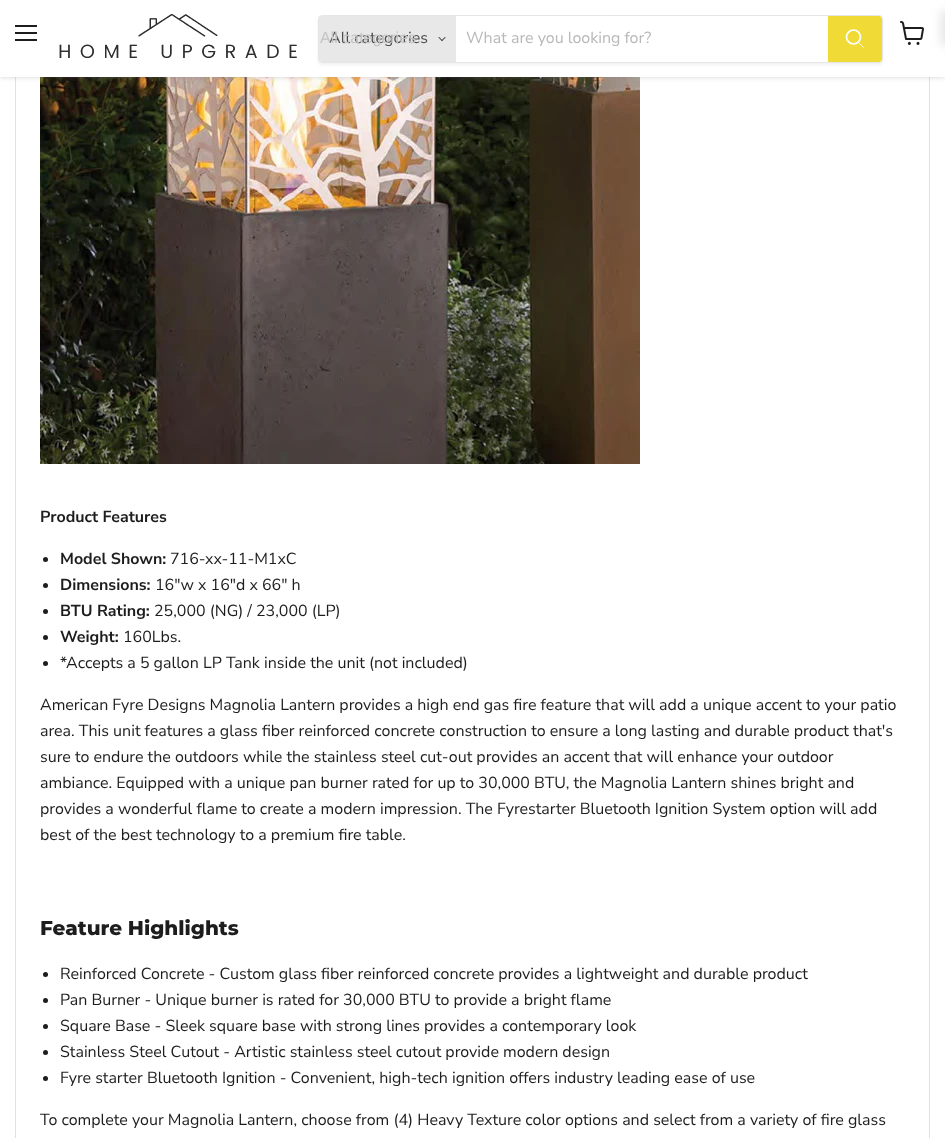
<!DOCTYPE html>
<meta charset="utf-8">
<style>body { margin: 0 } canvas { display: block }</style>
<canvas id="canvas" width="945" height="1138"></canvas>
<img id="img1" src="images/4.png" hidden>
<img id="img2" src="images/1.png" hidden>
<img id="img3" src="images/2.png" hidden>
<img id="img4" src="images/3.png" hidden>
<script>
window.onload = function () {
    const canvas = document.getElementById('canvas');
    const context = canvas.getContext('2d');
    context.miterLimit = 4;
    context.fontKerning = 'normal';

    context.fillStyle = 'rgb(255, 255, 255)';
    context.fillRect(0, 0, 945, 1138);
    context.strokeStyle = 'rgb(225, 225, 225)';
    context.strokeRect(15.5, -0.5, 914, 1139);
    context.drawImage(document.getElementById('img1'), 40, 77, 600, 387);
    context.fillStyle = 'rgba(128, 128, 128, 0.25)';
    context.filter = 'blur(2px)';
    context.beginPath();
    context.rect(0, 1, 945, 77);
    context.fill();
    context.filter = 'none';
    context.fillStyle = 'rgb(255, 255, 255)';
    context.fillRect(0, 0, 945, 77);
    context.fillStyle = 'rgb(29, 29, 29)';
    context.fillRect(15, 25, 22, 2);
    context.fillRect(15, 32, 22, 2);
    context.fillRect(15, 39, 22, 2);
    context.drawImage(document.getElementById('img2'), 59, 14, 238, 44);
    context.save();
    context.beginPath();
    context.moveTo(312, 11);
    context.lineTo(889, 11);
    context.lineTo(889, 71);
    context.lineTo(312, 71);
    context.closePath();
    context.moveTo(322, 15);
    context.lineTo(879, 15);
    context.bezierCurveTo(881, 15, 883, 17, 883, 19);
    context.lineTo(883, 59);
    context.bezierCurveTo(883, 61, 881, 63, 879, 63);
    context.lineTo(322, 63);
    context.bezierCurveTo(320, 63, 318, 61, 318, 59);
    context.lineTo(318, 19);
    context.bezierCurveTo(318, 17, 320, 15, 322, 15);
    context.closePath();
    context.clip('evenodd');
    context.fillStyle = 'rgba(128, 128, 128, 0.11)';
    context.filter = 'blur(1.5px)';
    context.beginPath();
    context.roundRect(318, 17, 565, 48, 4);
    context.fill();
    context.filter = 'none';
    context.restore();
    context.beginPath();
    context.roundRect(318.5, 15.5, 564, 47, 3.5);
    context.strokeStyle = 'rgba(128, 128, 128, 0.2)';
    context.stroke();
    context.fillStyle = 'rgb(232, 232, 232)';
    context.beginPath();
    context.roundRect(319, 16, 137, 46, [3, 0, 0, 3]);
    context.fill();
    context.drawImage(document.getElementById('img3'), 438, 37, 8, 5);
    context.fillStyle = 'rgb(240, 218, 54)';
    context.beginPath();
    context.roundRect(828.5, 16.5, 53, 45, [0, 2.5, 2.5, 0]);
    context.fill();
    context.strokeStyle = 'rgb(240, 218, 54)';
    context.stroke();
    context.beginPath();
    context.moveTo(863.5, 47.5);
    context.lineTo(858.5, 42.5);
    context.strokeStyle = 'rgb(255, 255, 255)';
    context.lineWidth = 0.9;
    context.lineCap = 'round';
    context.stroke();
    context.beginPath();
    context.arc(853.5, 37, 7, 0, 2 * Math.PI);
    context.lineWidth = 1.7;
    context.stroke();
    context.drawImage(document.getElementById('img4'), 900, 21, 24, 24);
    context.fillStyle = 'rgb(232, 232, 232)';
    context.filter = 'blur(5px)';
    context.beginPath();
    context.roundRect(940, 10, 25, 36, 5);
    context.fill();
    context.filter = 'none';
    context.fillStyle = 'rgb(29, 29, 29)';
    context.beginPath();
    context.arc(45.5, 559.5, 2.5, 0, 2 * Math.PI);
    context.fill();
    context.beginPath();
    context.arc(45.5, 585.5, 2.5, 0, 2 * Math.PI);
    context.fill();
    context.beginPath();
    context.arc(45.5, 611.5, 2.5, 0, 2 * Math.PI);
    context.fill();
    context.beginPath();
    context.arc(45.5, 637.5, 2.5, 0, 2 * Math.PI);
    context.fill();
    context.beginPath();
    context.arc(45.5, 663.5, 2.5, 0, 2 * Math.PI);
    context.fill();
    context.beginPath();
    context.arc(45.5, 974.5, 2.5, 0, 2 * Math.PI);
    context.fill();
    context.beginPath();
    context.arc(45.5, 1000.5, 2.5, 0, 2 * Math.PI);
    context.fill();
    context.beginPath();
    context.arc(45.5, 1026.5, 2.5, 0, 2 * Math.PI);
    context.fill();
    context.beginPath();
    context.arc(45.5, 1052.5, 2.5, 0, 2 * Math.PI);
    context.fill();
    context.beginPath();
    context.arc(45.5, 1078.5, 2.5, 0, 2 * Math.PI);
    context.fill();
    context.font = '16px Nunito Sans';
    context.fillStyle = 'rgb(77, 77, 77)';
    context.fillText('All categories', 329, 43);
    context.font = '16px Liberation Sans';
    context.fillStyle = 'rgb(196, 196, 196)';
    context.fillText('All categories', 320, 43);
    context.font = '16px Nunito Sans';
    context.fillStyle = 'rgb(184, 184, 184)';
    context.fillText('What are you looking for?', 466, 43);
    context.font = 'bold 16px Nunito Sans';
    context.fillStyle = 'rgb(29, 29, 29)';
    context.fillText('Product Features', 40, 522);
    context.fillText('Model Shown:', 60, 564);
    context.font = '16px Nunito Sans';
    context.fillText('716-xx-11-M1xC', 170, 564);
    context.font = 'bold 16px Nunito Sans';
    context.fillText('Dimensions:', 60, 590);
    context.font = '16px Nunito Sans';
    context.fillText('16″w x 16″d x 66″ h', 155, 590);
    context.font = 'bold 16px Nunito Sans';
    context.fillText('BTU Rating:', 60, 616);
    context.font = '16px Nunito Sans';
    context.fillText('25,000 (NG) / 23,000 (LP)', 154, 616);
    context.font = 'bold 16px Nunito Sans';
    context.fillText('Weight:', 60, 642);
    context.font = '16px Nunito Sans';
    context.fillText('160Lbs.', 123, 642);
    context.fillText('*Accepts a 5 gallon LP Tank inside the unit (not included)', 60, 668);
    context.fillText('American Fyre Designs Magnolia Lantern provides a high end gas fire feature that will add a unique accent to your patio', 40, 710);
    context.fillText('area. This unit features a glass fiber reinforced concrete construction to ensure a long lasting and durable product that\'s', 40, 736);
    context.fillText('sure to endure the outdoors while the stainless steel cut-out provides an accent that will enhance your outdoor', 40, 762);
    context.fillText('ambiance. Equipped with a unique pan burner rated for up to 30,000 BTU, the Magnolia Lantern shines bright and', 40, 788);
    context.fillText('provides a wonderful flame to create a modern impression. The Fyrestarter Bluetooth Ignition System option will add', 40, 814);
    context.fillText('best of the best technology to a premium fire table.', 40, 840);
    context.font = '800 20px Montserrat';
    context.fillText('Feature Highlights', 40, 935);
    context.font = '16px Nunito Sans';
    context.fillText('Reinforced Concrete - Custom glass fiber reinforced concrete provides a lightweight and durable product', 60, 979);
    context.fillText('Pan Burner - Unique burner is rated for 30,000 BTU to provide a bright flame', 60, 1005);
    context.fillText('Square Base - Sleek square base with strong lines provides a contemporary look', 60, 1031);
    context.fillText('Stainless Steel Cutout - Artistic stainless steel cutout provide modern design', 60, 1057);
    context.fillText('Fyre starter Bluetooth Ignition - Convenient, high-tech ignition offers industry leading ease of use', 60, 1083);
    context.fillText('To complete your Magnolia Lantern, choose from (4) Heavy Texture color options and select from a variety of fire glass', 40, 1125);
};
</script>
